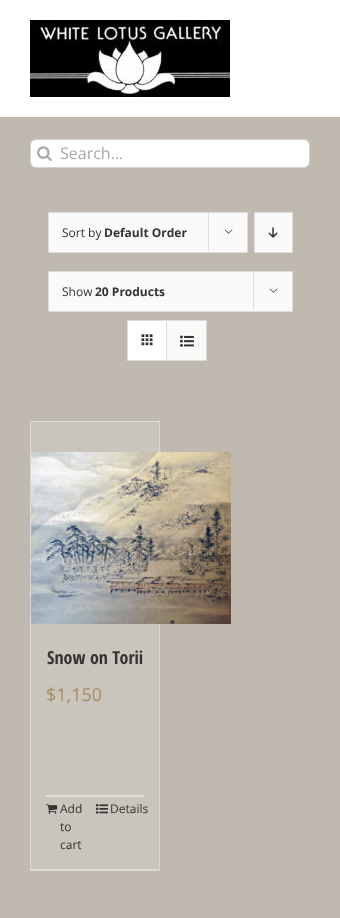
<!DOCTYPE html>
<meta charset="utf-8">
<style>body { margin: 0 } canvas { display: block }</style>
<canvas id="canvas" width="340" height="918"></canvas>
<img id="img1" src="images/1.png" hidden>
<img id="img2" src="images/2.png" hidden>
<img id="img3" src="images/3.png" hidden>
<img id="img4" src="images/4.png" hidden>
<img id="img5" src="images/5.png" hidden>
<img id="img6" src="images/6.png" hidden>
<img id="img7" src="images/7.png" hidden>
<img id="img8" src="images/8.png" hidden>
<img id="img9" src="images/9.png" hidden>
<script>
window.onload = function () {
    const canvas = document.getElementById('canvas');
    const context = canvas.getContext('2d');
    context.miterLimit = 4;
    context.fontKerning = 'normal';

    context.fillStyle = 'rgb(191, 185, 176)';
    context.fillRect(0, 0, 340, 918);
    context.fillStyle = 'rgb(255, 255, 255)';
    context.fillRect(0, 0, 340, 117);
    context.drawImage(document.getElementById('img1'), 30, 20, 200, 77);
    context.beginPath();
    context.roundRect(30.5, 139.5, 279, 28, 5.5);
    context.fill();
    context.strokeStyle = 'rgb(210, 210, 210)';
    context.stroke();
    context.drawImage(document.getElementById('img2'), 37, 146, 15, 16);
    context.fillStyle = 'rgb(251, 250, 249)';
    context.beginPath();
    context.rect(48.5, 212.5, 199, 40);
    context.fill();
    context.strokeStyle = 'rgb(219, 219, 219)';
    context.stroke();
    context.fillStyle = 'rgb(219, 219, 219)';
    context.fillRect(208, 212, 1, 39);
    context.drawImage(document.getElementById('img3'), 224, 229, 9, 5);
    context.fillStyle = 'rgb(251, 250, 249)';
    context.beginPath();
    context.rect(254.5, 212.5, 38, 40);
    context.fill();
    context.stroke();
    context.drawImage(document.getElementById('img4'), 268, 227, 10, 11);
    context.beginPath();
    context.rect(48.5, 271.5, 244, 40);
    context.fill();
    context.stroke();
    context.fillStyle = 'rgb(219, 219, 219)';
    context.fillRect(253, 271, 1, 39);
    context.drawImage(document.getElementById('img3'), 269, 288, 9, 5);
    context.strokeRect(127.5, 320.5, 79, 40);
    context.fillStyle = 'rgb(255, 255, 255)';
    context.fillRect(128, 321, 38, 39);
    context.fillStyle = 'rgb(219, 219, 219)';
    context.fillRect(166, 321, 1, 39);
    context.drawImage(document.getElementById('img5'), 141, 334, 12, 12);
    context.fillStyle = 'rgb(251, 250, 249)';
    context.fillRect(167, 321, 39, 39);
    context.drawImage(document.getElementById('img6'), 180, 335, 14, 12);
    context.fillStyle = 'rgb(201, 196, 188)';
    context.fillRect(30, 421, 130, 450);
    context.fillStyle = 'rgb(220, 218, 214)';
    context.beginPath();
    context.moveTo(30, 421);
    context.lineTo(160, 421);
    context.lineTo(159, 422);
    context.lineTo(31, 422);
    context.closePath();
    context.fill();
    context.fillStyle = 'rgba(235, 234, 234, 0.57)';
    context.beginPath();
    context.moveTo(160, 421);
    context.lineTo(160, 871);
    context.lineTo(159, 869);
    context.lineTo(159, 422);
    context.closePath();
    context.fill();
    context.beginPath();
    context.moveTo(160, 871);
    context.lineTo(30, 871);
    context.lineTo(31, 869);
    context.lineTo(159, 869);
    context.closePath();
    context.fill();
    context.beginPath();
    context.moveTo(30, 871);
    context.lineTo(30, 421);
    context.lineTo(31, 422);
    context.lineTo(31, 869);
    context.closePath();
    context.fill();
    context.drawImage(document.getElementById('img7'), 31, 452, 200, 172);
    context.fillStyle = 'rgb(224, 222, 222)';
    context.fillRect(46, 795, 98, 2);
    context.drawImage(document.getElementById('img8'), 46, 804, 12, 10);
    context.drawImage(document.getElementById('img9'), 96, 804, 12, 10);
    context.font = '16px Open Sans';
    context.fillStyle = 'rgb(170, 169, 169)';
    context.fillText('Search...', 60, 159);
    context.font = '12px Open Sans';
    context.fillStyle = 'rgb(51, 51, 51)';
    context.fillText('Sort by', 62, 237);
    context.font = 'bold 12px Open Sans';
    context.fillText('Default Order', 104, 237);
    context.font = '12px Open Sans';
    context.fillText('Show', 62, 296);
    context.font = 'bold 12px Open Sans';
    context.fillText('20 Products', 95, 296);
    context.font = 'bold 18px Open Sans Condensed';
    context.fillText('Snow on Torii', 47, 664);
    context.font = '18px Open Sans';
    context.fillStyle = 'rgb(171, 139, 101)';
    context.fillText('$1,150', 46, 701);
    context.font = '12px Open Sans';
    context.fillStyle = 'rgb(51, 51, 51)';
    context.fillText('Add', 60, 813);
    context.fillText('to', 60, 831);
    context.fillText('cart', 60, 849);
    context.fillText('Details', 110, 813);
};
</script>
